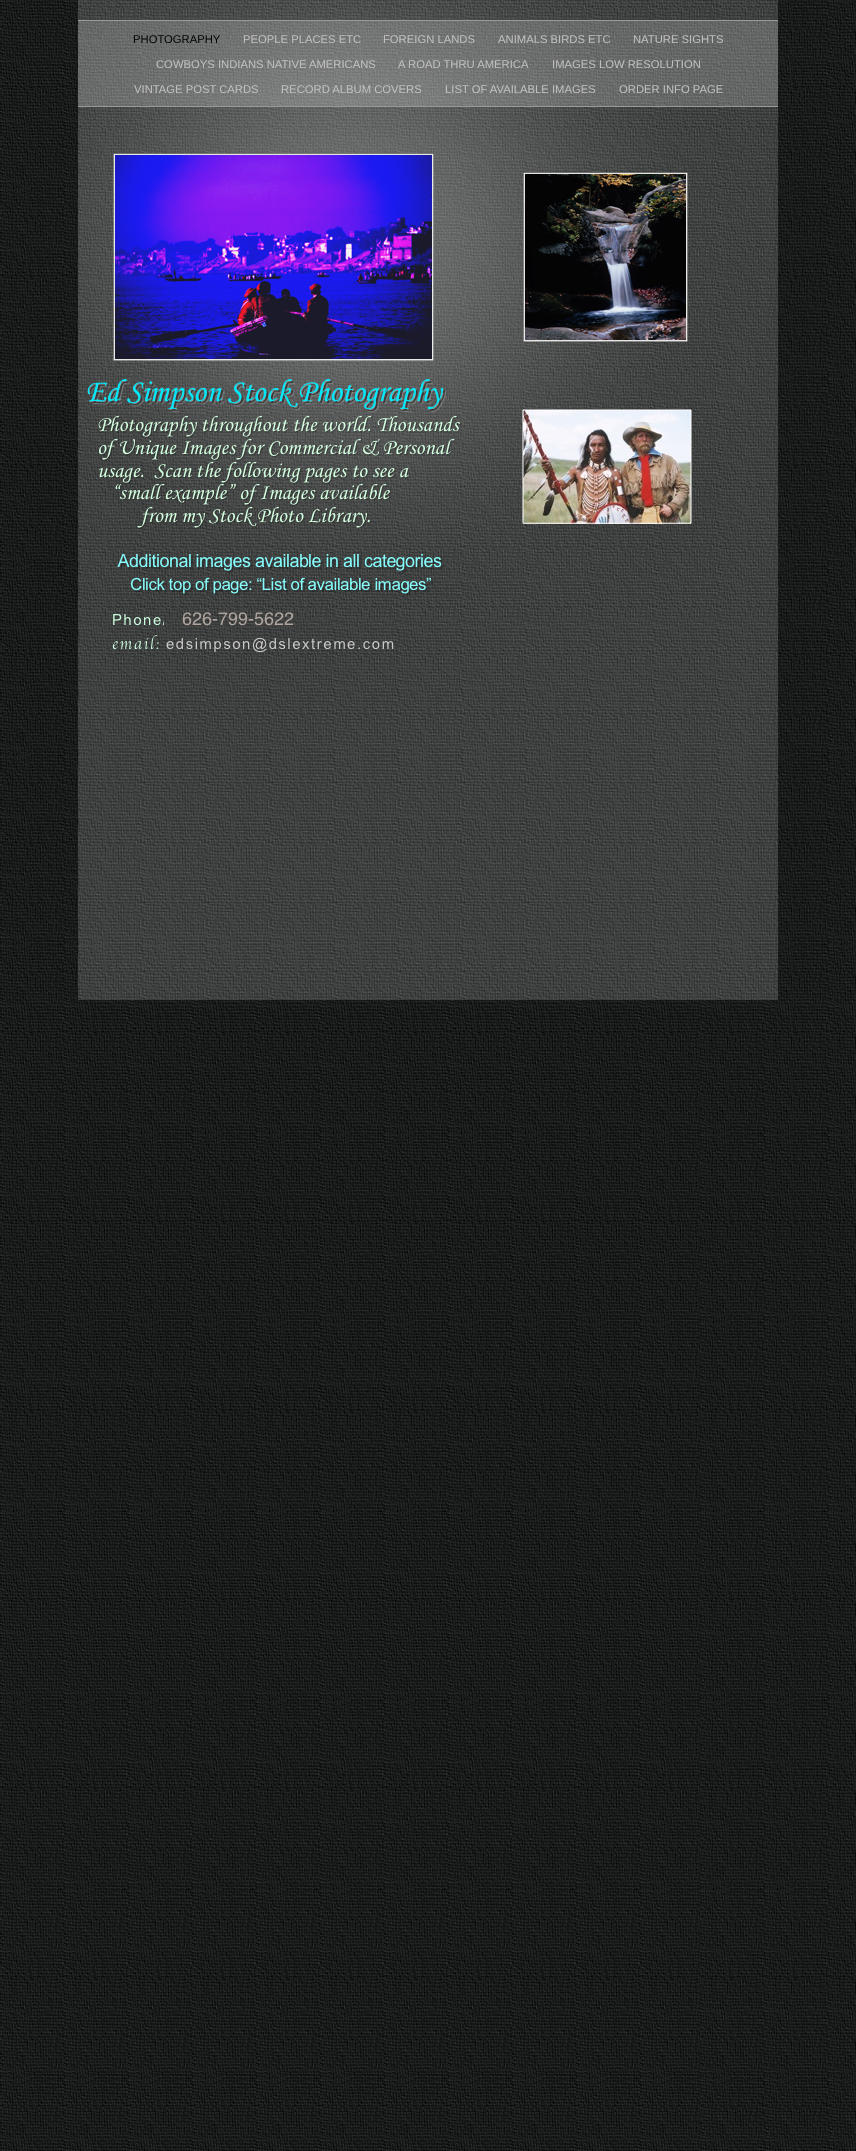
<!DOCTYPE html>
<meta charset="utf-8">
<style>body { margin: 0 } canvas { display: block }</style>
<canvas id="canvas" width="856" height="2151"></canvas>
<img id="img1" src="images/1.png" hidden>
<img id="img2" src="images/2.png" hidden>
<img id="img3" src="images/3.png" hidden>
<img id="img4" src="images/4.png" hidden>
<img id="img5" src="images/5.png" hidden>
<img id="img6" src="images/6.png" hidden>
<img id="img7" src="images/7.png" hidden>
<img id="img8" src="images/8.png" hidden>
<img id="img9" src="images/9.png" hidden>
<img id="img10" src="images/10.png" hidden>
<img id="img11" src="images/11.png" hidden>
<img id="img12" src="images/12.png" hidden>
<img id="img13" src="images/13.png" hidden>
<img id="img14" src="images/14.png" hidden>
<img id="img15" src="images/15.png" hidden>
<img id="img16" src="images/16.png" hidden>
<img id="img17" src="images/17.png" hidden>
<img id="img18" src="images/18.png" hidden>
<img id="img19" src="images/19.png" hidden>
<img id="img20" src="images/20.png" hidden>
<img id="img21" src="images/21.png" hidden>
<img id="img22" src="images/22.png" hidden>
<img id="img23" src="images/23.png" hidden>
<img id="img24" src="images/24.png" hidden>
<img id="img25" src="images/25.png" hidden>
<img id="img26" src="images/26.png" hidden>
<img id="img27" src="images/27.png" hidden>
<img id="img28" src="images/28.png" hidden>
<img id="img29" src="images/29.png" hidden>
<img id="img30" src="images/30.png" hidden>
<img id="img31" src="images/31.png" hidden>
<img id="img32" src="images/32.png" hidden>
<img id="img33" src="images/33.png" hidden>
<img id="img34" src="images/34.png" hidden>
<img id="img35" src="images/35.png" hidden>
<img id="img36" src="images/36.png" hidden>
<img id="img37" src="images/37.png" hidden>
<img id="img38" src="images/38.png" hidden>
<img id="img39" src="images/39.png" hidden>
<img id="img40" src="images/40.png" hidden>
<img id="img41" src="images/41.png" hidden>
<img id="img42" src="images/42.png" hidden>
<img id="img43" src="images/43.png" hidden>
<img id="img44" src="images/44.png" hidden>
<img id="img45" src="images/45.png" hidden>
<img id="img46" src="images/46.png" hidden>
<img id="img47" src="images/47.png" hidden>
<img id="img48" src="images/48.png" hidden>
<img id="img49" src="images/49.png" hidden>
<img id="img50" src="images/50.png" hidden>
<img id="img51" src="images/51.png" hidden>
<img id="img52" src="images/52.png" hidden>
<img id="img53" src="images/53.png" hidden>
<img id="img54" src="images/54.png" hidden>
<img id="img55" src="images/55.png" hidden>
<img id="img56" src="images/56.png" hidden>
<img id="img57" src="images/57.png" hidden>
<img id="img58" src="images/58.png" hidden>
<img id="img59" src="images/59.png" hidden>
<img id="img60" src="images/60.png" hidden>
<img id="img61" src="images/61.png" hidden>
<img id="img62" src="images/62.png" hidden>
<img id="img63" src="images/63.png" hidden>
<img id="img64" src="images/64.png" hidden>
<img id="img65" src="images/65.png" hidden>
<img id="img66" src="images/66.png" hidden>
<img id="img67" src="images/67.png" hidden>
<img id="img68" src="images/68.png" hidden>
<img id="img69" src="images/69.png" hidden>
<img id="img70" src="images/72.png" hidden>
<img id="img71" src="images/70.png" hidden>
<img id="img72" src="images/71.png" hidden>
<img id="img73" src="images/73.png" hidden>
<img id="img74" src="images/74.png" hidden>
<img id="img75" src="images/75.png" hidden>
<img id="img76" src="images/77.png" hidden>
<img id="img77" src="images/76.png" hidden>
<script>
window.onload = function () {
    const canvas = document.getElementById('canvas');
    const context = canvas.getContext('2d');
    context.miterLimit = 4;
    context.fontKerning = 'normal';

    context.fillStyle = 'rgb(255, 255, 255)';
    context.fillRect(0, 0, 856, 2151);
    context.drawImage(document.getElementById('img1'), 0, 0, 856, 2151);
    context.drawImage(document.getElementById('img2'), 78, 620, 700, 380);
    context.drawImage(document.getElementById('img3'), 78, 0, 700, 620);
    context.fillStyle = 'rgba(255, 255, 255, 0.2)';
    context.fillRect(78, 21, 700, 85);
    context.fillStyle = 'rgb(153, 153, 153)';
    context.fillRect(78, 20, 700, 1);
    context.fillRect(78, 106, 700, 1);
    context.drawImage(document.getElementById('img4'), 113, 153, 2, 2);
    context.drawImage(document.getElementById('img5'), 115, 153, 30, 2);
    context.drawImage(document.getElementById('img6'), 145, 153, 30, 2);
    context.drawImage(document.getElementById('img7'), 175, 153, 30, 2);
    context.drawImage(document.getElementById('img8'), 205, 153, 30, 2);
    context.drawImage(document.getElementById('img9'), 235, 153, 30, 2);
    context.drawImage(document.getElementById('img10'), 265, 153, 30, 2);
    context.drawImage(document.getElementById('img11'), 295, 153, 30, 2);
    context.drawImage(document.getElementById('img12'), 325, 153, 30, 2);
    context.drawImage(document.getElementById('img13'), 355, 153, 30, 2);
    context.drawImage(document.getElementById('img14'), 385, 153, 30, 2);
    context.drawImage(document.getElementById('img15'), 415, 153, 17, 2);
    context.drawImage(document.getElementById('img16'), 432, 153, 2, 2);
    context.drawImage(document.getElementById('img17'), 113, 155, 2, 41);
    context.drawImage(document.getElementById('img18'), 113, 196, 2, 41);
    context.drawImage(document.getElementById('img19'), 113, 237, 2, 41);
    context.drawImage(document.getElementById('img20'), 113, 278, 2, 41);
    context.drawImage(document.getElementById('img21'), 113, 319, 2, 40);
    context.drawImage(document.getElementById('img22'), 432, 155, 2, 41);
    context.drawImage(document.getElementById('img23'), 432, 196, 2, 41);
    context.drawImage(document.getElementById('img24'), 432, 237, 2, 41);
    context.drawImage(document.getElementById('img25'), 432, 278, 2, 41);
    context.drawImage(document.getElementById('img26'), 432, 319, 2, 40);
    context.drawImage(document.getElementById('img27'), 113, 359, 2, 2);
    context.drawImage(document.getElementById('img28'), 115, 359, 30, 2);
    context.drawImage(document.getElementById('img29'), 145, 359, 30, 2);
    context.drawImage(document.getElementById('img30'), 175, 359, 30, 2);
    context.drawImage(document.getElementById('img31'), 205, 359, 30, 2);
    context.drawImage(document.getElementById('img32'), 235, 359, 30, 2);
    context.drawImage(document.getElementById('img33'), 265, 359, 30, 2);
    context.drawImage(document.getElementById('img34'), 295, 359, 30, 2);
    context.drawImage(document.getElementById('img35'), 325, 359, 30, 2);
    context.drawImage(document.getElementById('img36'), 355, 359, 30, 2);
    context.drawImage(document.getElementById('img37'), 385, 359, 30, 2);
    context.drawImage(document.getElementById('img38'), 415, 359, 17, 2);
    context.drawImage(document.getElementById('img39'), 432, 359, 2, 2);
    context.drawImage(document.getElementById('img40'), 115, 155, 317, 204);
    context.drawImage(document.getElementById('img41'), 523, 172, 2, 2);
    context.drawImage(document.getElementById('img42'), 525, 172, 30, 2);
    context.drawImage(document.getElementById('img43'), 555, 172, 30, 2);
    context.drawImage(document.getElementById('img44'), 585, 172, 30, 2);
    context.drawImage(document.getElementById('img45'), 615, 172, 30, 2);
    context.drawImage(document.getElementById('img46'), 645, 172, 30, 2);
    context.drawImage(document.getElementById('img47'), 675, 172, 11, 2);
    context.drawImage(document.getElementById('img48'), 686, 172, 2, 2);
    context.drawImage(document.getElementById('img49'), 523, 174, 2, 41);
    context.drawImage(document.getElementById('img50'), 523, 215, 2, 41);
    context.drawImage(document.getElementById('img51'), 523, 256, 2, 41);
    context.drawImage(document.getElementById('img52'), 523, 297, 2, 41);
    context.drawImage(document.getElementById('img53'), 523, 338, 2, 2);
    context.drawImage(document.getElementById('img54'), 686, 174, 2, 41);
    context.drawImage(document.getElementById('img55'), 686, 215, 2, 41);
    context.drawImage(document.getElementById('img56'), 686, 256, 2, 41);
    context.drawImage(document.getElementById('img57'), 686, 297, 2, 41);
    context.drawImage(document.getElementById('img58'), 686, 338, 2, 2);
    context.drawImage(document.getElementById('img59'), 523, 340, 2, 2);
    context.drawImage(document.getElementById('img60'), 525, 340, 30, 2);
    context.drawImage(document.getElementById('img61'), 555, 340, 30, 2);
    context.drawImage(document.getElementById('img62'), 585, 340, 30, 2);
    context.drawImage(document.getElementById('img63'), 615, 340, 30, 2);
    context.drawImage(document.getElementById('img64'), 645, 340, 30, 2);
    context.drawImage(document.getElementById('img65'), 675, 340, 11, 2);
    context.drawImage(document.getElementById('img66'), 686, 340, 2, 2);
    context.drawImage(document.getElementById('img67'), 525, 174, 161, 166);
    context.drawImage(document.getElementById('img68'), 87, 379, 360, 34);
    context.drawImage(document.getElementById('img69'), 98, 415, 363, 181);
    context.drawImage(document.getElementById('img70'), 523, 410, 168, 114);
    context.drawImage(document.getElementById('img71'), 522, 409, 2, 2);
    context.fillStyle = 'rgba(255, 255, 255, 0.5)';
    context.fillRect(524, 409, 166, 2);
    context.drawImage(document.getElementById('img72'), 690, 409, 2, 2);
    context.fillRect(522, 411, 2, 111);
    context.fillRect(690, 411, 2, 111);
    context.drawImage(document.getElementById('img73'), 522, 522, 2, 2);
    context.drawImage(document.getElementById('img74'), 524, 522, 166, 2);
    context.drawImage(document.getElementById('img75'), 690, 522, 2, 2);
    context.drawImage(document.getElementById('img76'), 166, 637, 228, 16);
    context.drawImage(document.getElementById('img77'), 112, 612, 182, 38);
    context.font = '11.25px Liberation Sans';
    context.fillStyle = 'rgb(0, 0, 0)';
    context.fillText('PHOTOGRAPHY', 133, 43);
    context.fillStyle = 'rgb(193, 193, 193)';
    context.fillText('PEOPLE PLACES ETC', 243, 43);
    context.fillText('FOREIGN LANDS', 383, 43);
    context.fillText('ANIMALS BIRDS ETC', 498, 43);
    context.fillText('NATURE SIGHTS', 633, 43);
    context.fillText('COWBOYS INDIANS NATIVE AMERICANS', 156, 68);
    context.fillText('A ROAD THRU AMERICA', 398, 68);
    context.fillText('IMAGES LOW RESOLUTION', 552, 68);
    context.fillText('VINTAGE POST CARDS', 134, 93);
    context.fillText('RECORD ALBUM COVERS', 281, 93);
    context.fillText('LIST OF AVAILABLE IMAGES', 445, 93);
    context.fillText('ORDER INFO PAGE', 619, 93);
};
</script>
